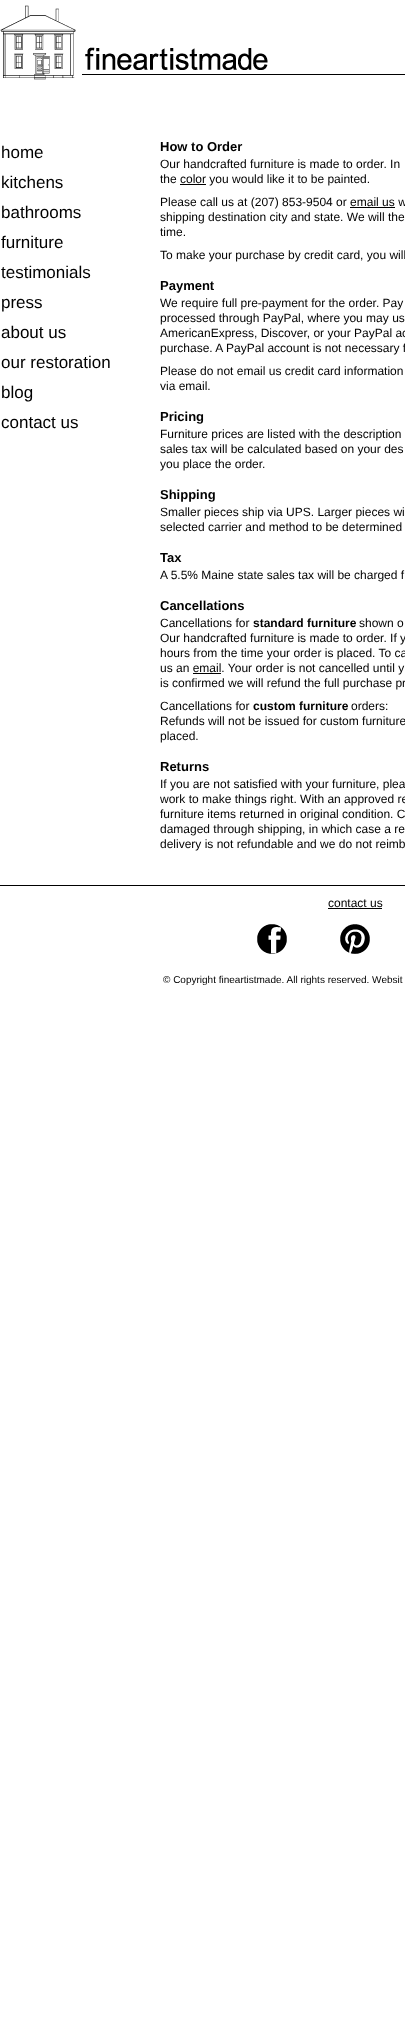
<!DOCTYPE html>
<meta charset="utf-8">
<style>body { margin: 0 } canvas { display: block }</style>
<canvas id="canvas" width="405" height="2017"></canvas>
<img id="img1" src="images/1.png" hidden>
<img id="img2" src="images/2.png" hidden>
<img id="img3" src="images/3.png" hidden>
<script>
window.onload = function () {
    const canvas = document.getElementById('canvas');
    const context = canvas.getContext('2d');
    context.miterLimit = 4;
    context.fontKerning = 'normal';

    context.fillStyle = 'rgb(255, 255, 255)';
    context.fillRect(0, 0, 405, 2017);
    context.drawImage(document.getElementById('img1'), 0, 5, 405, 75);
    context.fillStyle = 'rgb(0, 0, 0)';
    context.fillRect(180, 184, 26, 1);
    context.fillRect(350, 207, 45, 1);
    context.fillRect(193, 673, 28, 1);
    context.fillRect(0, 885, 405, 1);
    context.fillRect(328, 908, 54, 1);
    context.drawImage(document.getElementById('img2'), 257, 924, 30, 30);
    context.drawImage(document.getElementById('img3'), 340, 924, 30, 30);
    context.font = '17px Liberation Sans';
    context.fillText('home', 1, 158);
    context.fillText('kitchens', 1, 188);
    context.fillText('bathrooms', 1, 218);
    context.fillText('furniture', 1, 248);
    context.fillText('testimonials', 1, 278);
    context.fillText('press', 1, 308);
    context.fillText('about us', 1, 338);
    context.fillText('our restoration', 1, 368);
    context.fillText('blog', 1, 398);
    context.fillText('contact us', 1, 428);
    context.font = 'bold 13px Liberation Sans';
    context.fillText('How to Order', 160, 151);
    context.font = '12px Liberation Sans';
    context.fillText('Our handcrafted furniture is made to order. In', 160, 168);
    context.fillText('the color you would like it to be painted.', 160, 183);
    context.fillText('Please call us at (207) 853-9504 or email us w', 160, 206);
    context.fillText('shipping destination city and state. We will the', 160, 221);
    context.fillText('time.', 160, 236);
    context.fillText('To make your purchase by credit card, you will', 160, 259);
    context.font = 'bold 13px Liberation Sans';
    context.fillText('Payment', 160, 290);
    context.font = '12px Liberation Sans';
    context.fillText('We require full pre-payment for the order. Pay', 160, 307);
    context.fillText('processed through PayPal, where you may us', 160, 322);
    context.fillText('AmericanExpress, Discover, or your PayPal ac', 160, 337);
    context.fillText('purchase. A PayPal account is not necessary f', 160, 352);
    context.fillText('Please do not email us credit card information', 160, 375);
    context.fillText('via email.', 160, 390);
    context.font = 'bold 13px Liberation Sans';
    context.fillText('Pricing', 160, 421);
    context.font = '12px Liberation Sans';
    context.fillText('Furniture prices are listed with the description', 160, 438);
    context.fillText('sales tax will be calculated based on your des', 160, 453);
    context.fillText('you place the order.', 160, 468);
    context.font = 'bold 13px Liberation Sans';
    context.fillText('Shipping', 160, 499);
    context.font = '12px Liberation Sans';
    context.fillText('Smaller pieces ship via UPS. Larger pieces wi', 160, 516);
    context.fillText('selected carrier and method to be determined', 160, 531);
    context.font = 'bold 13px Liberation Sans';
    context.fillText('Tax', 160, 562);
    context.font = '12px Liberation Sans';
    context.fillText('A 5.5% Maine state sales tax will be charged f', 160, 579);
    context.font = 'bold 13px Liberation Sans';
    context.fillText('Cancellations', 160, 610);
    context.font = '12px Liberation Sans';
    context.fillText('Cancellations for', 160, 627);
    context.font = 'bold 12px Liberation Sans';
    context.fillText('standard furniture', 253, 627);
    context.font = '12px Liberation Sans';
    context.fillText('shown o', 359, 627);
    context.fillText('Our handcrafted furniture is made to order. If y', 160, 642);
    context.fillText('hours from the time your order is placed. To ca', 160, 657);
    context.fillText('us an email. Your order is not cancelled until y', 160, 672);
    context.fillText('is confirmed we will refund the full purchase pr', 160, 687);
    context.fillText('Cancellations for', 160, 710);
    context.font = 'bold 12px Liberation Sans';
    context.fillText('custom furniture', 253, 710);
    context.font = '12px Liberation Sans';
    context.fillText('orders:', 351, 710);
    context.fillText('Refunds will not be issued for custom furniture', 160, 725);
    context.fillText('placed.', 160, 740);
    context.font = 'bold 13px Liberation Sans';
    context.fillText('Returns', 160, 771);
    context.font = '12px Liberation Sans';
    context.fillText('If you are not satisfied with your furniture, plea', 160, 788);
    context.fillText('work to make things right. With an approved re', 160, 803);
    context.fillText('furniture items returned in original condition. C', 160, 818);
    context.fillText('damaged through shipping, in which case a re', 160, 833);
    context.fillText('delivery is not refundable and we do not reimb', 160, 848);
    context.fillText('contact us', 328, 907);
    context.font = '10px Liberation Sans';
    context.fillText('© Copyright fineartistmade. All rights reserved. Websit', 163, 983);
};
</script>
